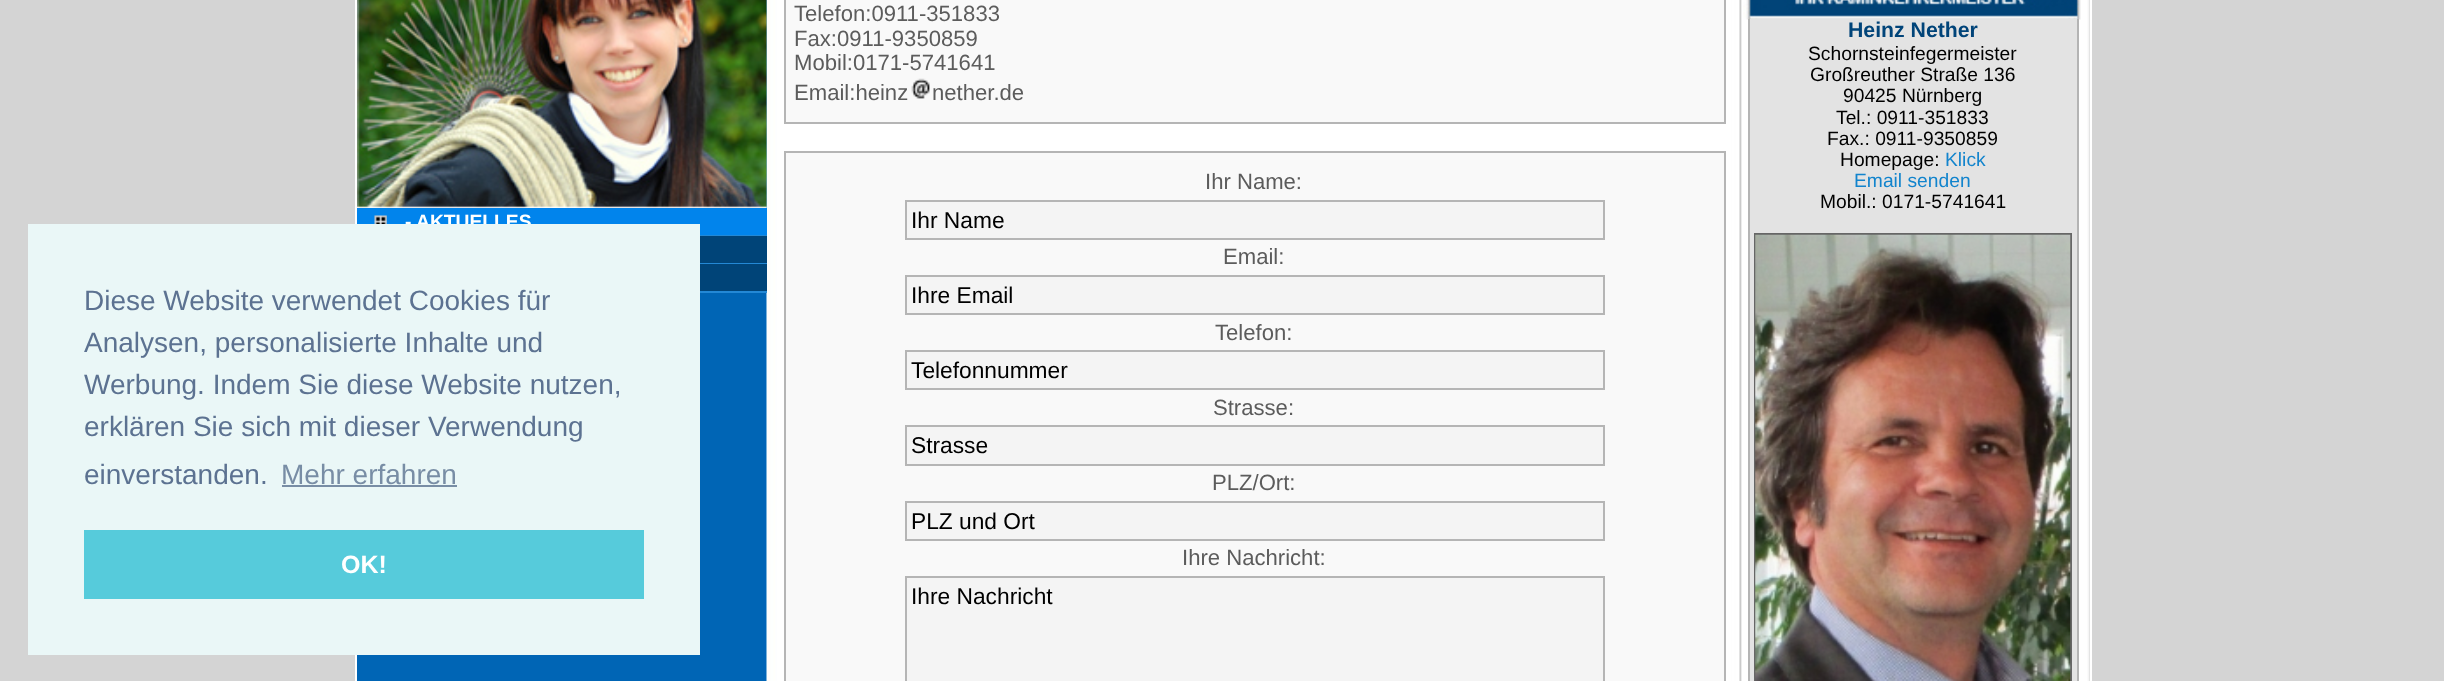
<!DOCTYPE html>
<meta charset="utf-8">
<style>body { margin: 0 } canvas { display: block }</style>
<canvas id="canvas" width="2444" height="681"></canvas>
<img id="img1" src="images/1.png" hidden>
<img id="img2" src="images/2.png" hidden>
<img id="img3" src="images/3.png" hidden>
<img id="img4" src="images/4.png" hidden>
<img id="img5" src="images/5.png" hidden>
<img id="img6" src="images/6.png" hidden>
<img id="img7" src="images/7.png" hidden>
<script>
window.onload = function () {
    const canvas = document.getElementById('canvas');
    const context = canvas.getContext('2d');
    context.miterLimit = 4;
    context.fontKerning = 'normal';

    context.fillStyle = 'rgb(212, 212, 212)';
    context.fillRect(0, 0, 2444, 681);
    context.drawImage(document.getElementById('img1'), 357, 0, 1733, 681);
    context.fillStyle = 'rgb(255, 255, 255)';
    context.fillRect(2090, 0, 2, 681);
    context.fillRect(355, 0, 2, 681);
    context.fillStyle = 'rgb(249, 249, 249)';
    context.beginPath();
    context.rect(785, -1, 940, 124);
    context.fill();
    context.strokeStyle = 'rgb(181, 181, 181)';
    context.lineWidth = 2;
    context.stroke();
    context.drawImage(document.getElementById('img2'), 911, 78, 19, 21);
    context.beginPath();
    context.rect(785, 152, 940, 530);
    context.fill();
    context.stroke();
    context.fillStyle = 'rgb(244, 244, 244)';
    context.beginPath();
    context.rect(906, 201, 698, 38);
    context.fill();
    context.stroke();
    context.beginPath();
    context.rect(906, 276, 698, 38);
    context.fill();
    context.stroke();
    context.beginPath();
    context.rect(906, 351, 698, 38);
    context.fill();
    context.stroke();
    context.beginPath();
    context.rect(906, 426, 698, 39);
    context.fill();
    context.stroke();
    context.beginPath();
    context.rect(906, 502, 698, 38);
    context.fill();
    context.stroke();
    context.beginPath();
    context.rect(906, 577, 698, 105);
    context.fill();
    context.stroke();
    context.drawImage(document.getElementById('img3'), 1743, 0, 338, 20);
    context.fillStyle = 'rgb(227, 227, 227)';
    context.fillRect(1750, 19, 327, 662);
    context.fillStyle = 'rgb(180, 180, 180)';
    context.fillRect(2077, 19, 2, 662);
    context.fillRect(1748, 19, 2, 662);
    context.strokeStyle = 'rgb(102, 102, 102)';
    context.strokeRect(1755, 234, 316, 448);
    context.drawImage(document.getElementById('img4'), 1755, 234, 316, 447);
    context.drawImage(document.getElementById('img5'), 357, 0, 410, 208);
    context.drawImage(document.getElementById('img6'), 357, 0, 2, 90);
    context.fillStyle = 'rgb(1, 132, 236)';
    context.fillRect(357, 208, 410, 27);
    context.drawImage(document.getElementById('img7'), 374, 215, 13, 9);
    context.fillStyle = 'rgb(35, 136, 213)';
    context.fillRect(700, 235, 67, 1);
    context.fillStyle = 'rgb(0, 68, 120)';
    context.fillRect(700, 236, 67, 27);
    context.fillStyle = 'rgb(35, 136, 213)';
    context.fillRect(700, 263, 67, 1);
    context.fillStyle = 'rgb(0, 68, 120)';
    context.fillRect(700, 264, 67, 27);
    context.fillStyle = 'rgb(35, 136, 213)';
    context.fillRect(700, 291, 67, 2);
    context.font = '22.1px Liberation Sans';
    context.fillStyle = 'rgb(92, 92, 92)';
    context.fillText('Telefon:0911-351833', 794, 21);
    context.fillText('Fax:0911-9350859', 794, 46);
    context.fillText('Mobil:0171-5741641', 794, 70);
    context.fillText('Email:heinz', 794, 100);
    context.fillText('nether.de', 932, 100);
    context.fillText('Ihr Name:', 1205, 189);
    context.font = '22.75px Liberation Sans';
    context.fillStyle = 'rgb(0, 0, 0)';
    context.fillText('Ihr Name', 911, 228);
    context.font = '22.1px Liberation Sans';
    context.fillStyle = 'rgb(92, 92, 92)';
    context.fillText('Email:', 1223, 264);
    context.font = '22.75px Liberation Sans';
    context.fillStyle = 'rgb(0, 0, 0)';
    context.fillText('Ihre Email', 911, 303);
    context.font = '22.1px Liberation Sans';
    context.fillStyle = 'rgb(92, 92, 92)';
    context.fillText('Telefon:', 1215, 340);
    context.font = '22.75px Liberation Sans';
    context.fillStyle = 'rgb(0, 0, 0)';
    context.fillText('Telefonnummer', 911, 378);
    context.font = '22.1px Liberation Sans';
    context.fillStyle = 'rgb(92, 92, 92)';
    context.fillText('Strasse:', 1213, 415);
    context.font = '22.75px Liberation Sans';
    context.fillStyle = 'rgb(0, 0, 0)';
    context.fillText('Strasse', 911, 453);
    context.font = '22.1px Liberation Sans';
    context.fillStyle = 'rgb(92, 92, 92)';
    context.fillText('PLZ/Ort:', 1212, 490);
    context.font = '22.75px Liberation Sans';
    context.fillStyle = 'rgb(0, 0, 0)';
    context.fillText('PLZ und Ort', 911, 529);
    context.font = '22.1px Liberation Sans';
    context.fillStyle = 'rgb(92, 92, 92)';
    context.fillText('Ihre Nachricht:', 1182, 565);
    context.font = '22.75px Liberation Sans';
    context.fillStyle = 'rgb(0, 0, 0)';
    context.fillText('Ihre Nachricht', 911, 604);
    context.font = 'bold 21.25px Liberation Sans';
    context.fillStyle = 'rgb(1, 68, 121)';
    context.fillText('Heinz Nether', 1848, 37);
    context.font = '19.25px Liberation Sans';
    context.fillStyle = 'rgb(0, 0, 0)';
    context.fillText('Schornsteinfegermeister', 1808, 60);
    context.fillText('Großreuther Straße 136', 1810, 81);
    context.fillText('90425 Nürnberg', 1843, 102);
    context.fillText('Tel.: 0911-351833', 1836, 124);
    context.fillText('Fax.: 0911-9350859', 1827, 145);
    context.fillText('Homepage:', 1840, 166);
    context.fillStyle = 'rgb(18, 132, 205)';
    context.fillText('Klick', 1945, 166);
    context.fillText('Email senden', 1854, 187);
    context.fillStyle = 'rgb(0, 0, 0)';
    context.fillText('Mobil.: 0171-5741641', 1820, 208);
    context.font = 'bold 19.25px Liberation Sans';
    context.fillStyle = 'rgb(255, 255, 255)';
    context.fillText('- AKTUELLES', 405, 228);
    context.fillStyle = 'rgb(234, 247, 247)';
    context.fillRect(28, 224, 672, 431);
    context.font = '28px Liberation Sans';
    context.fillStyle = 'rgb(120, 141, 165)';
    context.fillText('Mehr erfahren', 281, 484);
    context.fillRect(282, 485, 175, 2);
    context.fillStyle = 'rgb(86, 203, 219)';
    context.fillRect(84, 530, 560, 69);
    context.font = 'bold 25px Liberation Sans';
    context.fillStyle = 'rgb(255, 255, 255)';
    context.fillText('OK!', 341, 573);
    context.font = '28px Liberation Sans';
    context.fillStyle = 'rgb(92, 114, 145)';
    context.fillText('einverstanden.', 84, 484);
    context.fillText('erklären Sie sich mit dieser Verwendung', 84, 436);
    context.fillText('Werbung. Indem Sie diese Website nutzen,', 84, 394);
    context.fillText('Analysen, personalisierte Inhalte und', 84, 352);
    context.fillText('Diese Website verwendet Cookies für', 84, 310);
};
</script>
